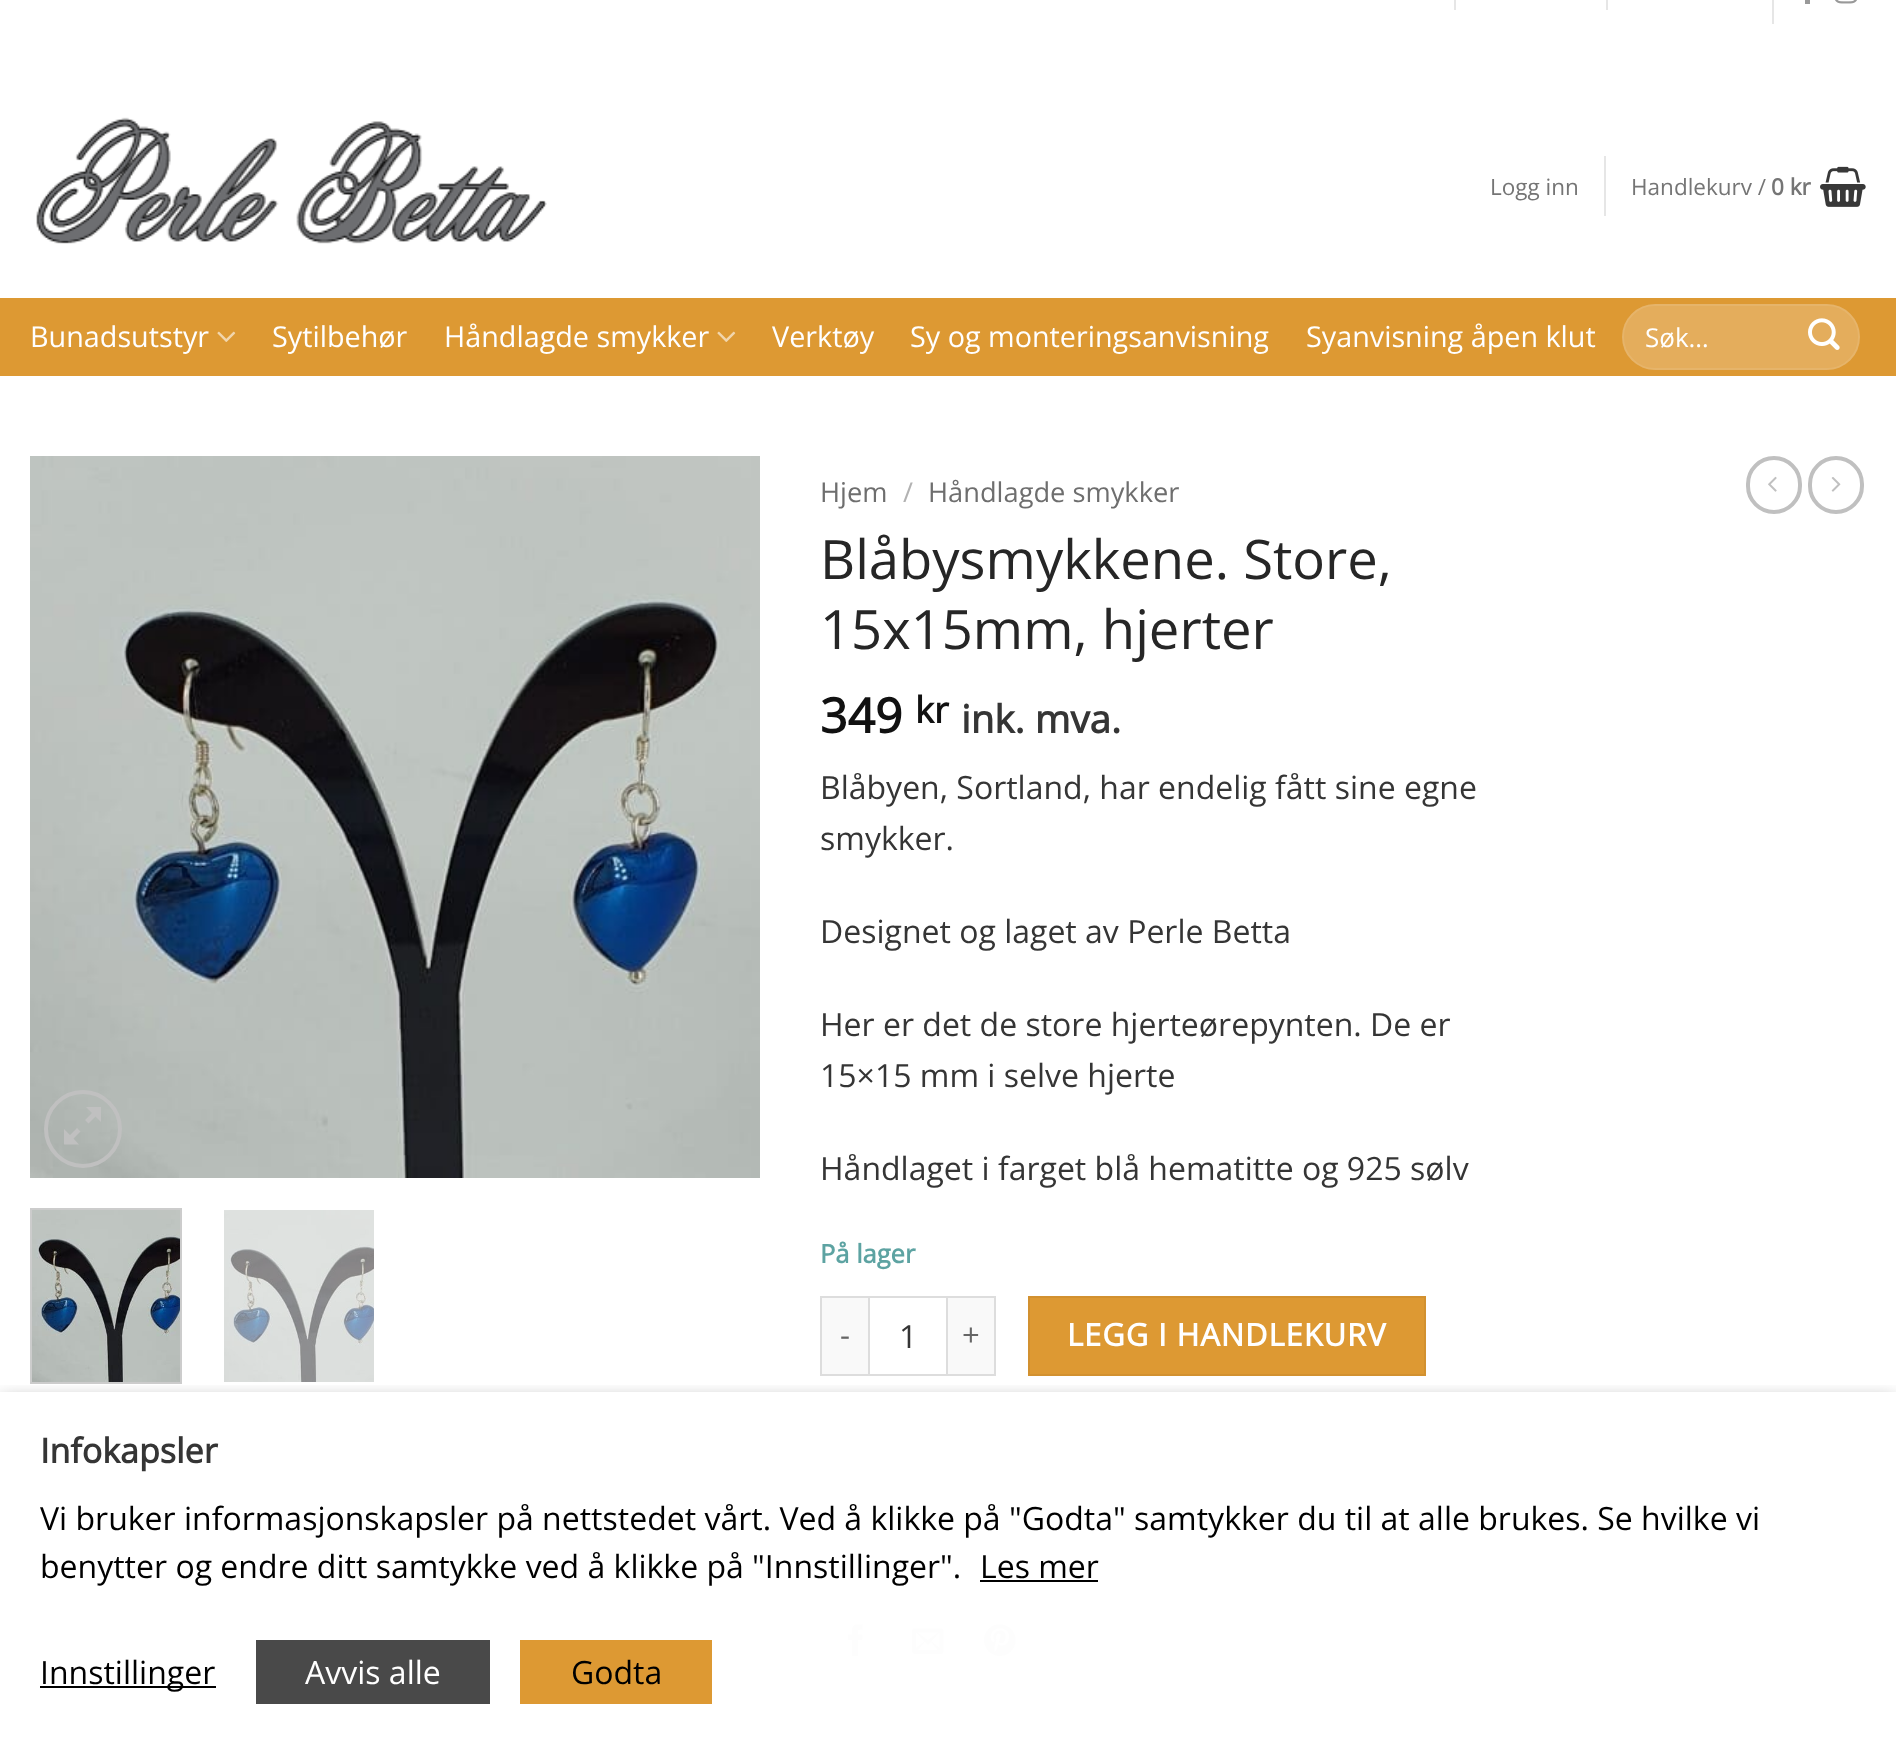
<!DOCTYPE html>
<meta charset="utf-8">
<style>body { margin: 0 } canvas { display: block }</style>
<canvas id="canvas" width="1896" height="1744"></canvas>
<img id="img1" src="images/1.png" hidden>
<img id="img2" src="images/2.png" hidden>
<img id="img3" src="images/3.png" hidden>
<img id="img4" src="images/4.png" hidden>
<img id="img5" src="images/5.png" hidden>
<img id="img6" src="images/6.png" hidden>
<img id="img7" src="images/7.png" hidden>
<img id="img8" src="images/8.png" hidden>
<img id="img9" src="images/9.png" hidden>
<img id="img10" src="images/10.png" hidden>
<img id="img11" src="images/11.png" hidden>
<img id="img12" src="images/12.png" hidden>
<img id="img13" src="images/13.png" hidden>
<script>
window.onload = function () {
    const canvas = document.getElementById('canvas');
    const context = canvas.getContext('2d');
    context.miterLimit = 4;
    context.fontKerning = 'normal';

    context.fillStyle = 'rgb(255, 255, 255)';
    context.fillRect(0, 0, 1896, 1744);
    context.fillStyle = 'rgb(230, 230, 230)';
    context.fillRect(1454, 0, 2, 10);
    context.fillRect(1606, 0, 2, 10);
    context.fillRect(1772, 0, 2, 24);
    context.fillStyle = 'rgb(153, 153, 153)';
    context.fillRect(1805, 0, 5, 4);
    context.drawImage(document.getElementById('img1'), 1835, 0, 22, 4);
    context.drawImage(document.getElementById('img2'), 36, 117, 511, 127);
    context.fillStyle = 'rgb(230, 230, 230)';
    context.fillRect(1604, 156, 2, 60);
    context.drawImage(document.getElementById('img3'), 1820, 166, 46, 41);
    context.fillStyle = 'rgb(221, 153, 51)';
    context.fillRect(0, 298, 1896, 78);
    context.drawImage(document.getElementById('img4'), 217, 331, 19, 11);
    context.drawImage(document.getElementById('img4'), 717, 331, 19, 11);
    context.fillStyle = 'rgb(228, 173, 92)';
    context.beginPath();
    context.roundRect(1622, 304, 238, 66, 33);
    context.fill();
    context.beginPath();
    context.roundRect(1623, 305, 236, 64, 32);
    context.strokeStyle = 'rgba(255, 255, 255, 0.09)';
    context.lineWidth = 2;
    context.stroke();
    context.drawImage(document.getElementById('img5'), 1808, 318, 32, 32);
    context.drawImage(document.getElementById('img6'), 30, 456, 730, 722);
    context.beginPath();
    context.arc(83, 1129, 37, 0, 2 * Math.PI);
    context.strokeStyle = 'rgb(192, 192, 192)';
    context.lineWidth = 4;
    context.stroke();
    context.fillStyle = 'rgb(192, 192, 192)';
    context.beginPath();
    context.moveTo(101, 1107);
    context.lineTo(101, 1122);
    context.lineTo(95.5, 1116.5);
    context.lineTo(88.5, 1123.5);
    context.lineTo(85, 1120);
    context.lineTo(92, 1113);
    context.lineTo(86, 1107);
    context.closePath();
    context.moveTo(80.5, 1131.5);
    context.lineTo(73.5, 1138.5);
    context.lineTo(79, 1144.5);
    context.lineTo(64, 1144.5);
    context.lineTo(64, 1129);
    context.lineTo(70, 1135);
    context.lineTo(77, 1128);
    context.closePath();
    context.fill();
    context.strokeStyle = 'rgb(204, 204, 204)';
    context.lineWidth = 2;
    context.strokeRect(31, 1209, 150, 174);
    context.drawImage(document.getElementById('img7'), 32, 1210, 148, 172);
    context.drawImage(document.getElementById('img8'), 224, 1210, 150, 172);
    context.fillStyle = 'rgb(249, 249, 249)';
    context.fillRect(822, 1298, 46, 76);
    context.fillStyle = 'rgb(221, 221, 221)';
    context.fillRect(820, 1296, 48, 2);
    context.fillRect(820, 1374, 48, 2);
    context.fillRect(820, 1296, 2, 80);
    context.strokeStyle = 'rgb(221, 221, 221)';
    context.strokeRect(869, 1297, 78, 78);
    context.fillStyle = 'rgb(249, 249, 249)';
    context.fillRect(948, 1298, 46, 76);
    context.fillStyle = 'rgb(221, 221, 221)';
    context.fillRect(948, 1296, 48, 2);
    context.fillRect(994, 1296, 2, 80);
    context.fillRect(948, 1374, 48, 2);
    context.fillStyle = 'rgb(221, 153, 51)';
    context.beginPath();
    context.rect(1029, 1297, 396, 78);
    context.fill();
    context.strokeStyle = 'rgb(210, 145, 48)';
    context.stroke();
    context.drawImage(document.getElementById('img9'), 847, 1624, 16, 32);
    context.drawImage(document.getElementById('img10'), 912, 1628, 32, 26);
    context.drawImage(document.getElementById('img11'), 984, 1624, 32, 32);
    context.beginPath();
    context.roundRect(1748, 458, 52, 54, 26);
    context.strokeStyle = 'rgb(192, 192, 192)';
    context.lineWidth = 4;
    context.stroke();
    context.drawImage(document.getElementById('img12'), 1768, 476, 9, 16);
    context.beginPath();
    context.roundRect(1810, 458, 52, 54, 26);
    context.stroke();
    context.drawImage(document.getElementById('img13'), 1831, 477, 10, 15);
    context.save();
    context.beginPath();
    context.rect(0, 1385, 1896, 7);
    context.clip();
    context.fillStyle = 'rgba(0, 0, 0, 0.5)';
    context.filter = 'blur(10px)';
    context.beginPath();
    context.rect(0, 1402, 1896, 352);
    context.fill();
    context.filter = 'none';
    context.restore();
    context.fillStyle = 'rgb(0, 0, 0)';
    context.fillRect(980, 1580, 118, 2);
    context.fillRect(40, 1686, 176, 2);
    context.fillStyle = 'rgb(73, 73, 73)';
    context.fillRect(256, 1640, 234, 64);
    context.fillStyle = 'rgb(221, 153, 51)';
    context.fillRect(520, 1640, 192, 64);
    context.font = '22.5px Open Sans';
    context.fillStyle = 'rgb(117, 117, 117)';
    context.fillText('Logg inn', 1490, 195);
    context.fillText('Handlekurv /', 1631, 195);
    context.font = 'bold 22.5px Open Sans';
    context.fillText('0 kr', 1771, 195);
    context.font = '28.75px Open Sans';
    context.fillStyle = 'rgb(255, 255, 255)';
    context.fillText('Bunadsutstyr', 30, 347);
    context.fillText('Sytilbehør', 272, 347);
    context.fillText('Håndlagde smykker', 444, 347);
    context.fillText('Verktøy', 772, 347);
    context.fillText('Sy og monteringsanvisning', 910, 347);
    context.fillText('Syanvisning åpen klut', 1306, 347);
    context.font = '26px Open Sans';
    context.fillText('Søk…', 1645, 347);
    context.font = '27.25px Open Sans';
    context.fillStyle = 'rgb(110, 110, 110)';
    context.fillText('Hjem', 820, 502);
    context.fillStyle = 'rgb(178, 178, 178)';
    context.fillText('/', 903, 502);
    context.fillStyle = 'rgb(110, 110, 110)';
    context.fillText('Håndlagde smykker', 928, 502);
    context.font = '54.4px Open Sans';
    context.fillStyle = 'rgb(38, 38, 38)';
    context.fillText('Blåbysmykkene. Store,', 820, 579);
    context.fillText('15x15mm, hjerter', 820, 649);
    context.font = 'bold 48px Open Sans';
    context.fillStyle = 'rgb(17, 17, 17)';
    context.fillText('349', 820, 733);
    context.font = 'bold 36px Open Sans';
    context.fillText('kr', 915, 723);
    context.font = 'bold 38.5px Open Sans';
    context.fillStyle = 'rgb(53, 53, 53)';
    context.fillText('ink. mva.', 961, 733);
    context.font = '32px Open Sans';
    context.fillText('Blåbyen, Sortland, har endelig fått sine egne', 820, 799);
    context.fillText('smykker.', 820, 850);
    context.fillText('Designet og laget av Perle Betta', 820, 943);
    context.fillText('Her er det de store hjerteørepynten. De er', 820, 1036);
    context.fillText('15×15 mm i selve hjerte', 820, 1087);
    context.fillText('Håndlaget i farget blå hematitte og 925 sølv', 820, 1180);
    context.font = 'bold 25.5px Open Sans';
    context.fillStyle = 'rgb(93, 163, 162)';
    context.fillText('På lager', 820, 1263);
    context.letterSpacing = '0.9px';
    context.font = '31px Open Sans';
    context.fillStyle = 'rgb(102, 102, 102)';
    context.fillText('-', 840, 1346);
    context.letterSpacing = '0px';
    context.font = '32px Open Sans';
    context.fillStyle = 'rgb(53, 53, 53)';
    context.fillText('1', 899, 1348);
    context.letterSpacing = '0.9px';
    context.font = '31px Open Sans';
    context.fillStyle = 'rgb(102, 102, 102)';
    context.fillText('+', 962, 1346);
    context.font = 'bold 31px Open Sans';
    context.fillStyle = 'rgb(255, 255, 255)';
    context.fillText('LEGG I HANDLEKURV', 1067, 1346);
    context.letterSpacing = '0px';
    context.font = 'bold 34px Open Sans';
    context.fillStyle = 'rgb(53, 53, 53)';
    context.fillText('Infokapsler', 40, 1463);
    context.font = '32px Open Sans';
    context.fillStyle = 'rgb(0, 0, 0)';
    context.fillText('Vi bruker informasjonskapsler på nettstedet vårt. Ved å klikke på "Godta" samtykker du til at alle brukes. Se hvilke vi', 40, 1530);
    context.fillText('benytter og endre ditt samtykke ved å klikke på "Innstillinger".', 40, 1578);
    context.fillText('Les mer', 980, 1578);
    context.fillText('Innstillinger', 40, 1684);
    context.fillStyle = 'rgb(255, 255, 255)';
    context.fillText('Avvis alle', 305, 1684);
    context.fillStyle = 'rgb(0, 0, 0)';
    context.fillText('Godta', 571, 1684);
};
</script>
